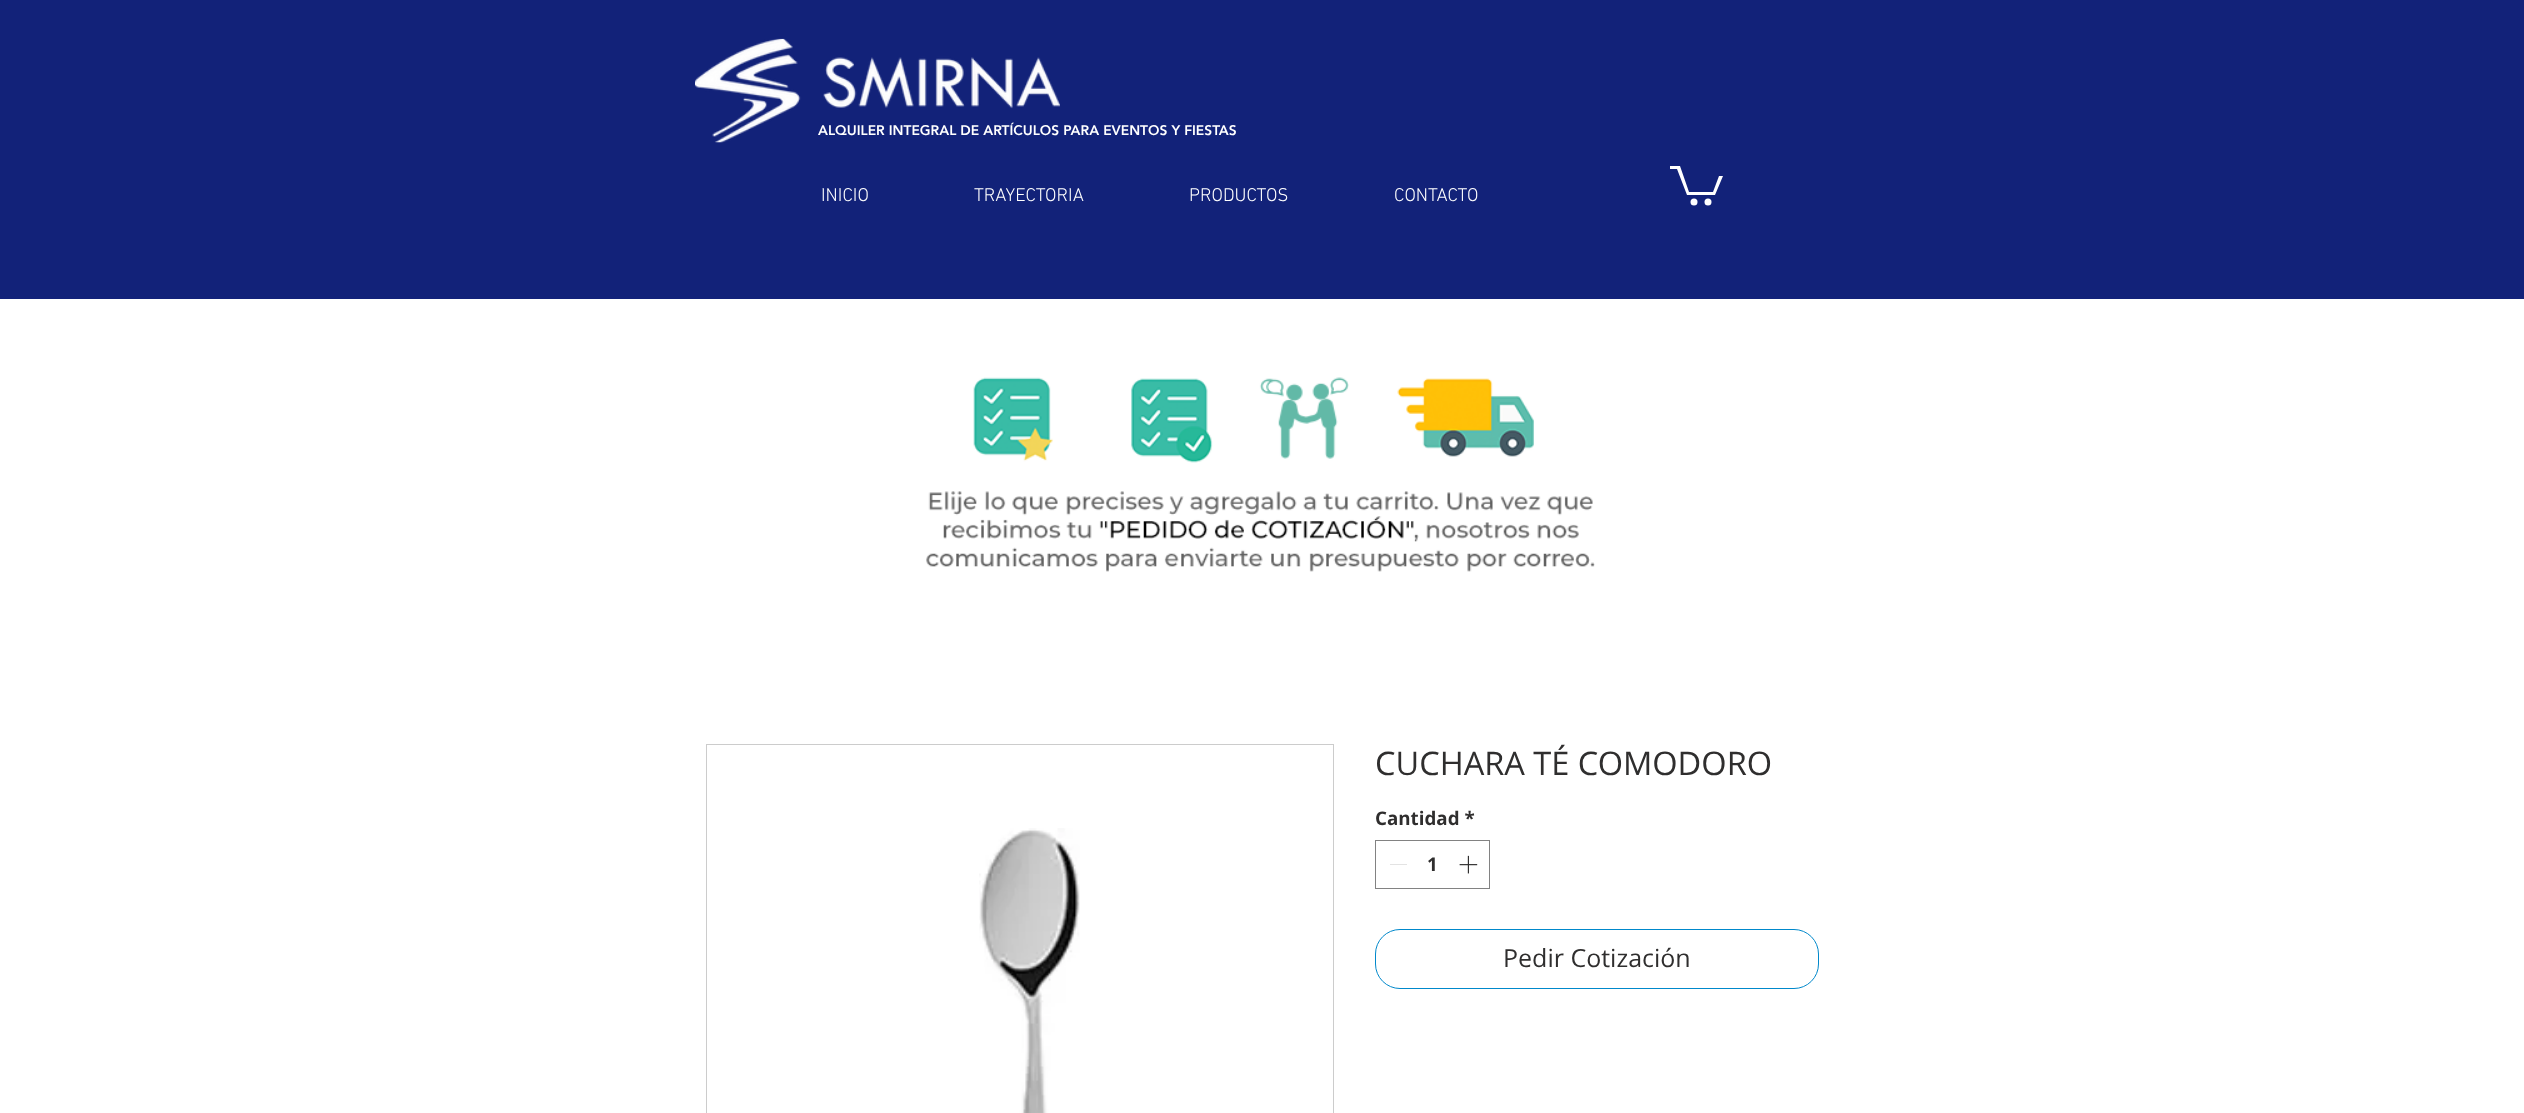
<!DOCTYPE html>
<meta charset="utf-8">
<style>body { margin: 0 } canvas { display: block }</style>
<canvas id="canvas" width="2524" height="1113"></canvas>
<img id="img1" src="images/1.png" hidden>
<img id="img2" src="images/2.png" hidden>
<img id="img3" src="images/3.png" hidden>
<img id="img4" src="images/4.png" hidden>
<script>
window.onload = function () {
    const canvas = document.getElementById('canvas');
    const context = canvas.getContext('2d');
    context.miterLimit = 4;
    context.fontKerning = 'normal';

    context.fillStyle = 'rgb(255, 255, 255)';
    context.fillRect(0, 0, 2524, 1113);
    context.fillStyle = 'rgb(18, 34, 121)';
    context.fillRect(0, 0, 2524, 299);
    context.drawImage(document.getElementById('img1'), 695, 38, 365, 105);
    context.fillStyle = 'rgb(255, 255, 255)';
    context.beginPath();
    context.moveTo(1723, 176);
    context.lineTo(1715, 195);
    context.lineTo(1687, 195);
    context.lineTo(1677, 169);
    context.lineTo(1670, 169);
    context.lineTo(1670, 166);
    context.lineTo(1680, 166);
    context.lineTo(1689, 192);
    context.lineTo(1713, 192);
    context.lineTo(1719, 176);
    context.fill();
    context.beginPath();
    context.arc(1708, 202, 3.5, 0, 2 * Math.PI);
    context.fill();
    context.beginPath();
    context.arc(1694, 202, 3.5, 0, 2 * Math.PI);
    context.fill();
    context.drawImage(document.getElementById('img2'), 926, 377, 669, 195);
    context.strokeStyle = 'rgb(204, 204, 204)';
    context.strokeRect(706.5, 744.5, 627, 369);
    context.drawImage(document.getElementById('img3'), 979, 828, 101, 285);
    context.strokeStyle = 'rgb(130, 130, 130)';
    context.strokeRect(1375.5, 840.5, 114, 48);
    context.fillStyle = 'rgb(227, 227, 227)';
    context.fillRect(1390, 864, 17, 1);
    context.drawImage(document.getElementById('img4'), 1459, 855, 19, 19);
    context.beginPath();
    context.roundRect(1375.5, 929.5, 443, 59, 24.5);
    context.strokeStyle = 'rgb(0, 136, 203)';
    context.stroke();
    context.font = '900 13.75px "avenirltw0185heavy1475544"';
    context.fillStyle = 'rgb(255, 255, 255)';
    context.fillText('ALQUILER INTEGRAL DE ARTÍCULOS PARA EVENTOS Y FIESTAS', 818, 135);
    context.font = '300 18.75px "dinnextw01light"';
    context.fillText('INICIO', 821, 201);
    context.fillText('TRAYECTORIA', 974, 201);
    context.fillText('PRODUCTOS', 1189, 201);
    context.fillText('CONTACTO', 1394, 201);
    context.font = '32.5px Open Sans';
    context.fillStyle = 'rgb(47, 46, 46)';
    context.fillText('CUCHARA TÉ COMODORO', 1375, 775);
    context.font = 'bold 18.75px Open Sans';
    context.fillText('Cantidad *', 1375, 825);
    context.fillText('1', 1427, 871);
    context.font = '25px Open Sans';
    context.fillText('Pedir Cotización', 1503, 967);
};
</script>
